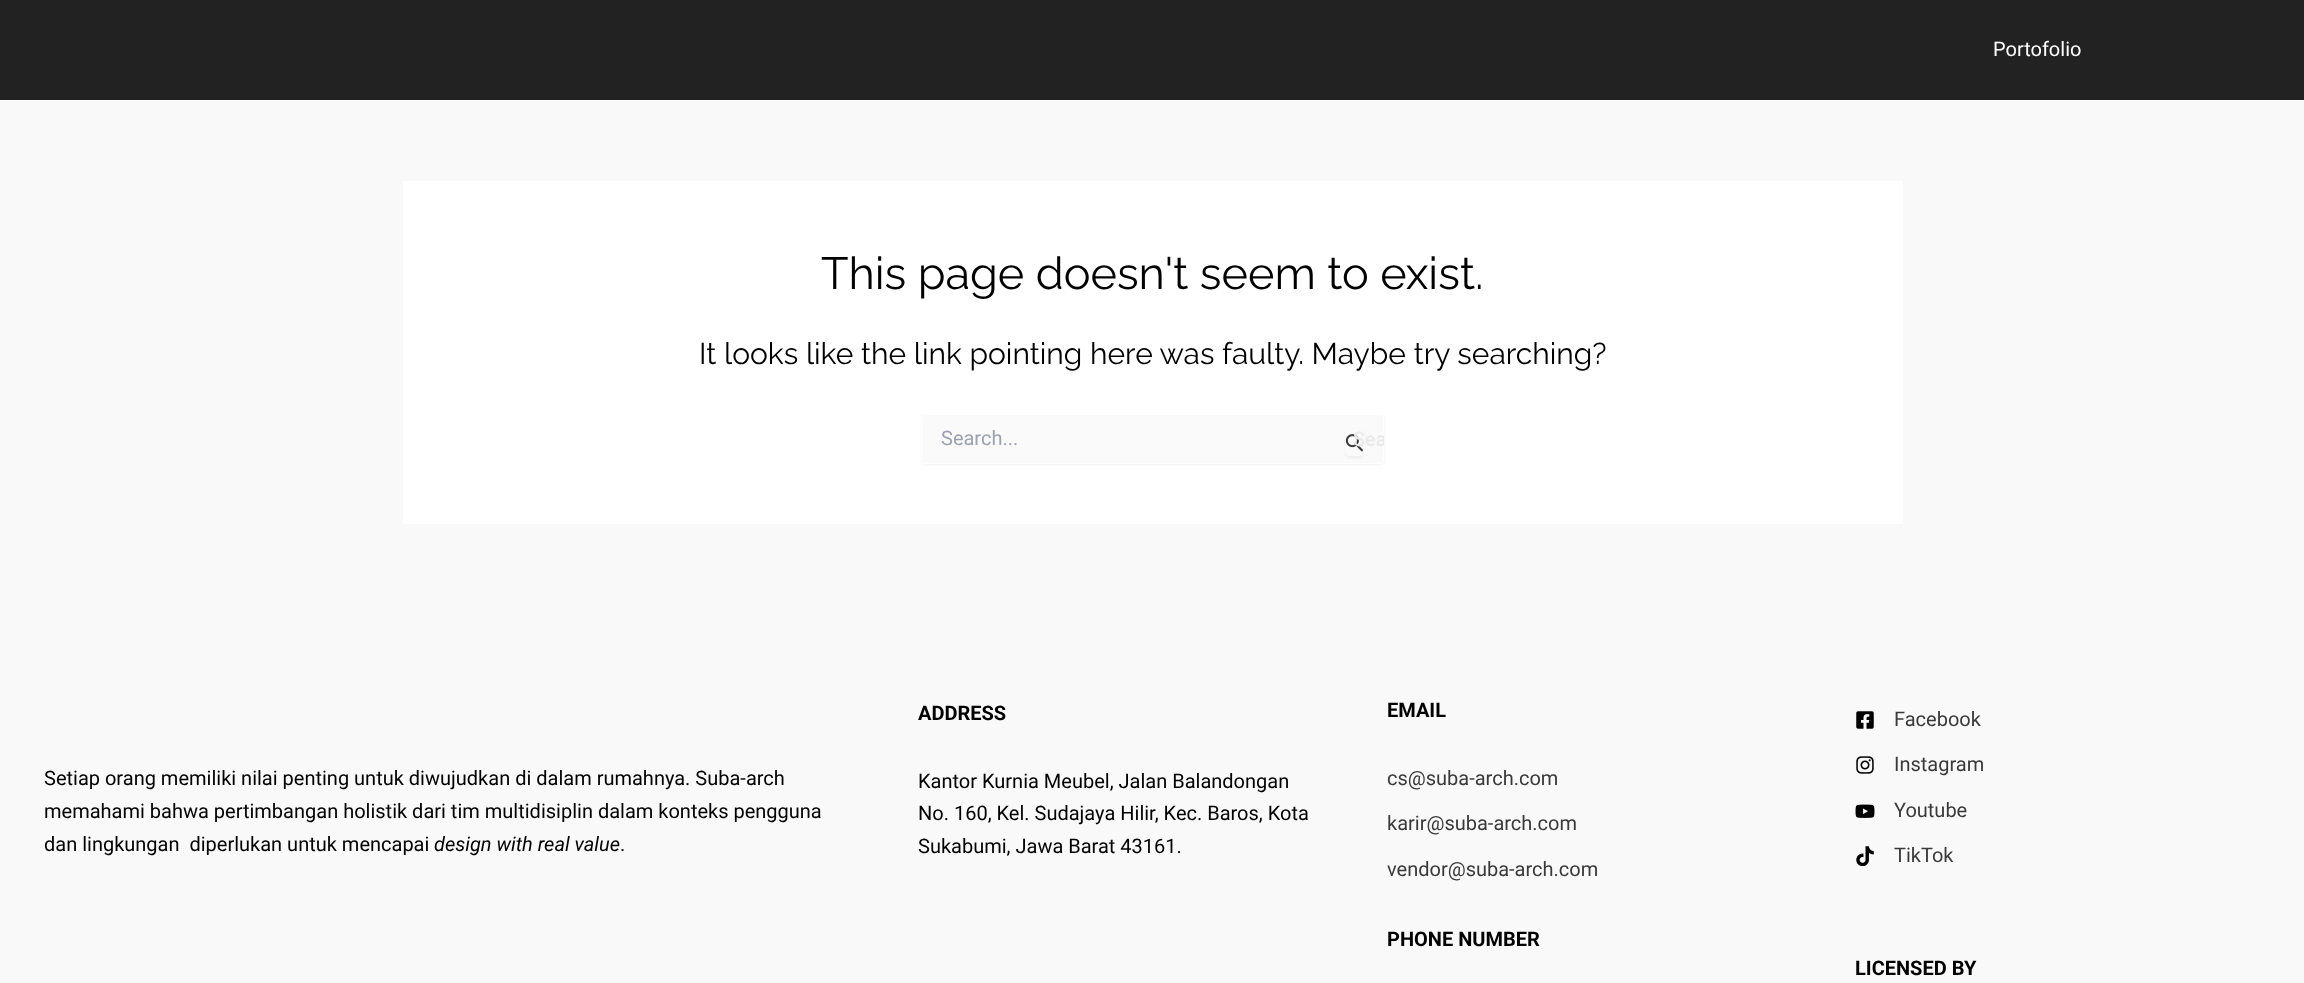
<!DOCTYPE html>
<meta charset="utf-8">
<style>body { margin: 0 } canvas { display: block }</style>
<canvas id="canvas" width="2304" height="983"></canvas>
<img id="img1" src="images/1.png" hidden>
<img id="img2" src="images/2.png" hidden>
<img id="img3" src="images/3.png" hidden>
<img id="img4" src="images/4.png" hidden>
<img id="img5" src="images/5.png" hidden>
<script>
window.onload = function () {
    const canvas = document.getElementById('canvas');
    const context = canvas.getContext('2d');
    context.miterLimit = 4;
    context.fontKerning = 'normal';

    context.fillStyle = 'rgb(249, 249, 249)';
    context.fillRect(0, 0, 2304, 983);
    context.fillStyle = 'rgb(34, 34, 34)';
    context.fillRect(0, 0, 2304, 100);
    context.fillStyle = 'rgb(255, 255, 255)';
    context.fillRect(0, 100, 2304, 1);
    context.fillRect(403, 181, 1500, 343);
    context.fillStyle = 'rgba(0, 0, 0, 0.05)';
    context.filter = 'blur(1px)';
    context.beginPath();
    context.roundRect(921, 415, 463, 50, 2.5);
    context.fill();
    context.filter = 'none';
    context.fillStyle = 'rgb(250, 250, 250)';
    context.beginPath();
    context.roundRect(921.5, 414.5, 462, 49, 2);
    context.fill();
    context.strokeStyle = 'rgb(255, 255, 255)';
    context.stroke();
    context.save();
    context.beginPath();
    context.moveTo(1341, 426);
    context.lineTo(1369, 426);
    context.lineTo(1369, 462);
    context.lineTo(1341, 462);
    context.closePath();
    context.moveTo(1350, 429);
    context.lineTo(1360, 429);
    context.bezierCurveTo(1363, 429, 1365, 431, 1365, 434);
    context.lineTo(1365, 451);
    context.bezierCurveTo(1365, 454, 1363, 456, 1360, 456);
    context.lineTo(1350, 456);
    context.bezierCurveTo(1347, 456, 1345, 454, 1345, 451);
    context.lineTo(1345, 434);
    context.bezierCurveTo(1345, 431, 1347, 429, 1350, 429);
    context.closePath();
    context.clip('evenodd');
    context.fillStyle = 'rgba(0, 0, 0, 0.05)';
    context.filter = 'blur(1px)';
    context.beginPath();
    context.roundRect(1345, 430, 20, 28, 5);
    context.fill();
    context.filter = 'none';
    context.restore();
    context.drawImage(document.getElementById('img1'), 1345, 434, 18, 18);
    context.drawImage(document.getElementById('img2'), 1856, 711, 18, 18);
    context.drawImage(document.getElementById('img3'), 1856, 756, 18, 18);
    context.drawImage(document.getElementById('img4'), 1855, 804, 20, 14);
    context.drawImage(document.getElementById('img5'), 1856, 846, 18, 20);
    context.font = '20px Roboto';
    context.fillStyle = 'rgb(255, 255, 255)';
    context.fillText('Portofolio', 1993, 56);
    context.font = '45px Raleway';
    context.fillStyle = 'rgb(0, 0, 0)';
    context.fillText('This page doesn\'t seem to exist.', 821, 289);
    context.font = '30px Raleway';
    context.fillText('It looks like the link pointing here was faulty. Maybe try searching?', 699, 364);
    context.font = '20px Roboto';
    context.fillStyle = 'rgb(156, 163, 175)';
    context.fillText('Search...', 941, 445);
    context.save();
    context.beginPath();
    context.roundRect(1328, 414, 56, 52, 2.5);
    context.clip();
    context.font = '500 20px Roboto';
    context.fillStyle = 'rgb(233, 233, 233)';
    context.fillText('Sea', 1353, 446);
    context.restore();
    context.fillStyle = 'rgb(0, 0, 0)';
    context.fillText('Setiap orang memiliki nilai penting untuk diwujudkan di dalam rumahnya. Suba-arch', 44, 785);
    context.fillText('memahami bahwa pertimbangan holistik dari tim multidisiplin dalam konteks pengguna', 44, 818);
    context.fillText('dan lingkungan  diperlukan untuk mencapai', 44, 851);
    context.font = 'italic 20px Roboto';
    context.fillText('design with real value', 434, 851);
    context.font = '20px Roboto';
    context.fillText('.', 620, 851);
    context.font = 'bold 20px Roboto';
    context.fillText('ADDRESS', 918, 720);
    context.font = '20px Roboto';
    context.fillText('Kantor Kurnia Meubel, Jalan Balandongan', 918, 788);
    context.fillText('No. 160, Kel. Sudajaya Hilir, Kec. Baros, Kota', 918, 820);
    context.fillText('Sukabumi, Jawa Barat 43161.', 918, 853);
    context.font = 'bold 20px Roboto';
    context.fillText('EMAIL', 1387, 717);
    context.font = '20px Roboto';
    context.fillStyle = 'rgb(58, 58, 58)';
    context.fillText('cs@suba-arch.com', 1387, 785);
    context.fillText('karir@suba-arch.com', 1387, 830);
    context.fillText('vendor@suba-arch.com', 1387, 876);
    context.font = 'bold 20px Roboto';
    context.fillStyle = 'rgb(0, 0, 0)';
    context.fillText('PHONE NUMBER', 1387, 946);
    context.font = '20px Roboto';
    context.fillStyle = 'rgb(58, 58, 58)';
    context.fillText('Facebook', 1894, 726);
    context.fillText('Instagram', 1894, 771);
    context.fillText('Youtube', 1894, 817);
    context.fillText('TikTok', 1894, 862);
    context.font = 'bold 20px Roboto';
    context.fillStyle = 'rgb(0, 0, 0)';
    context.fillText('LICENSED BY', 1855, 975);
};
</script>
